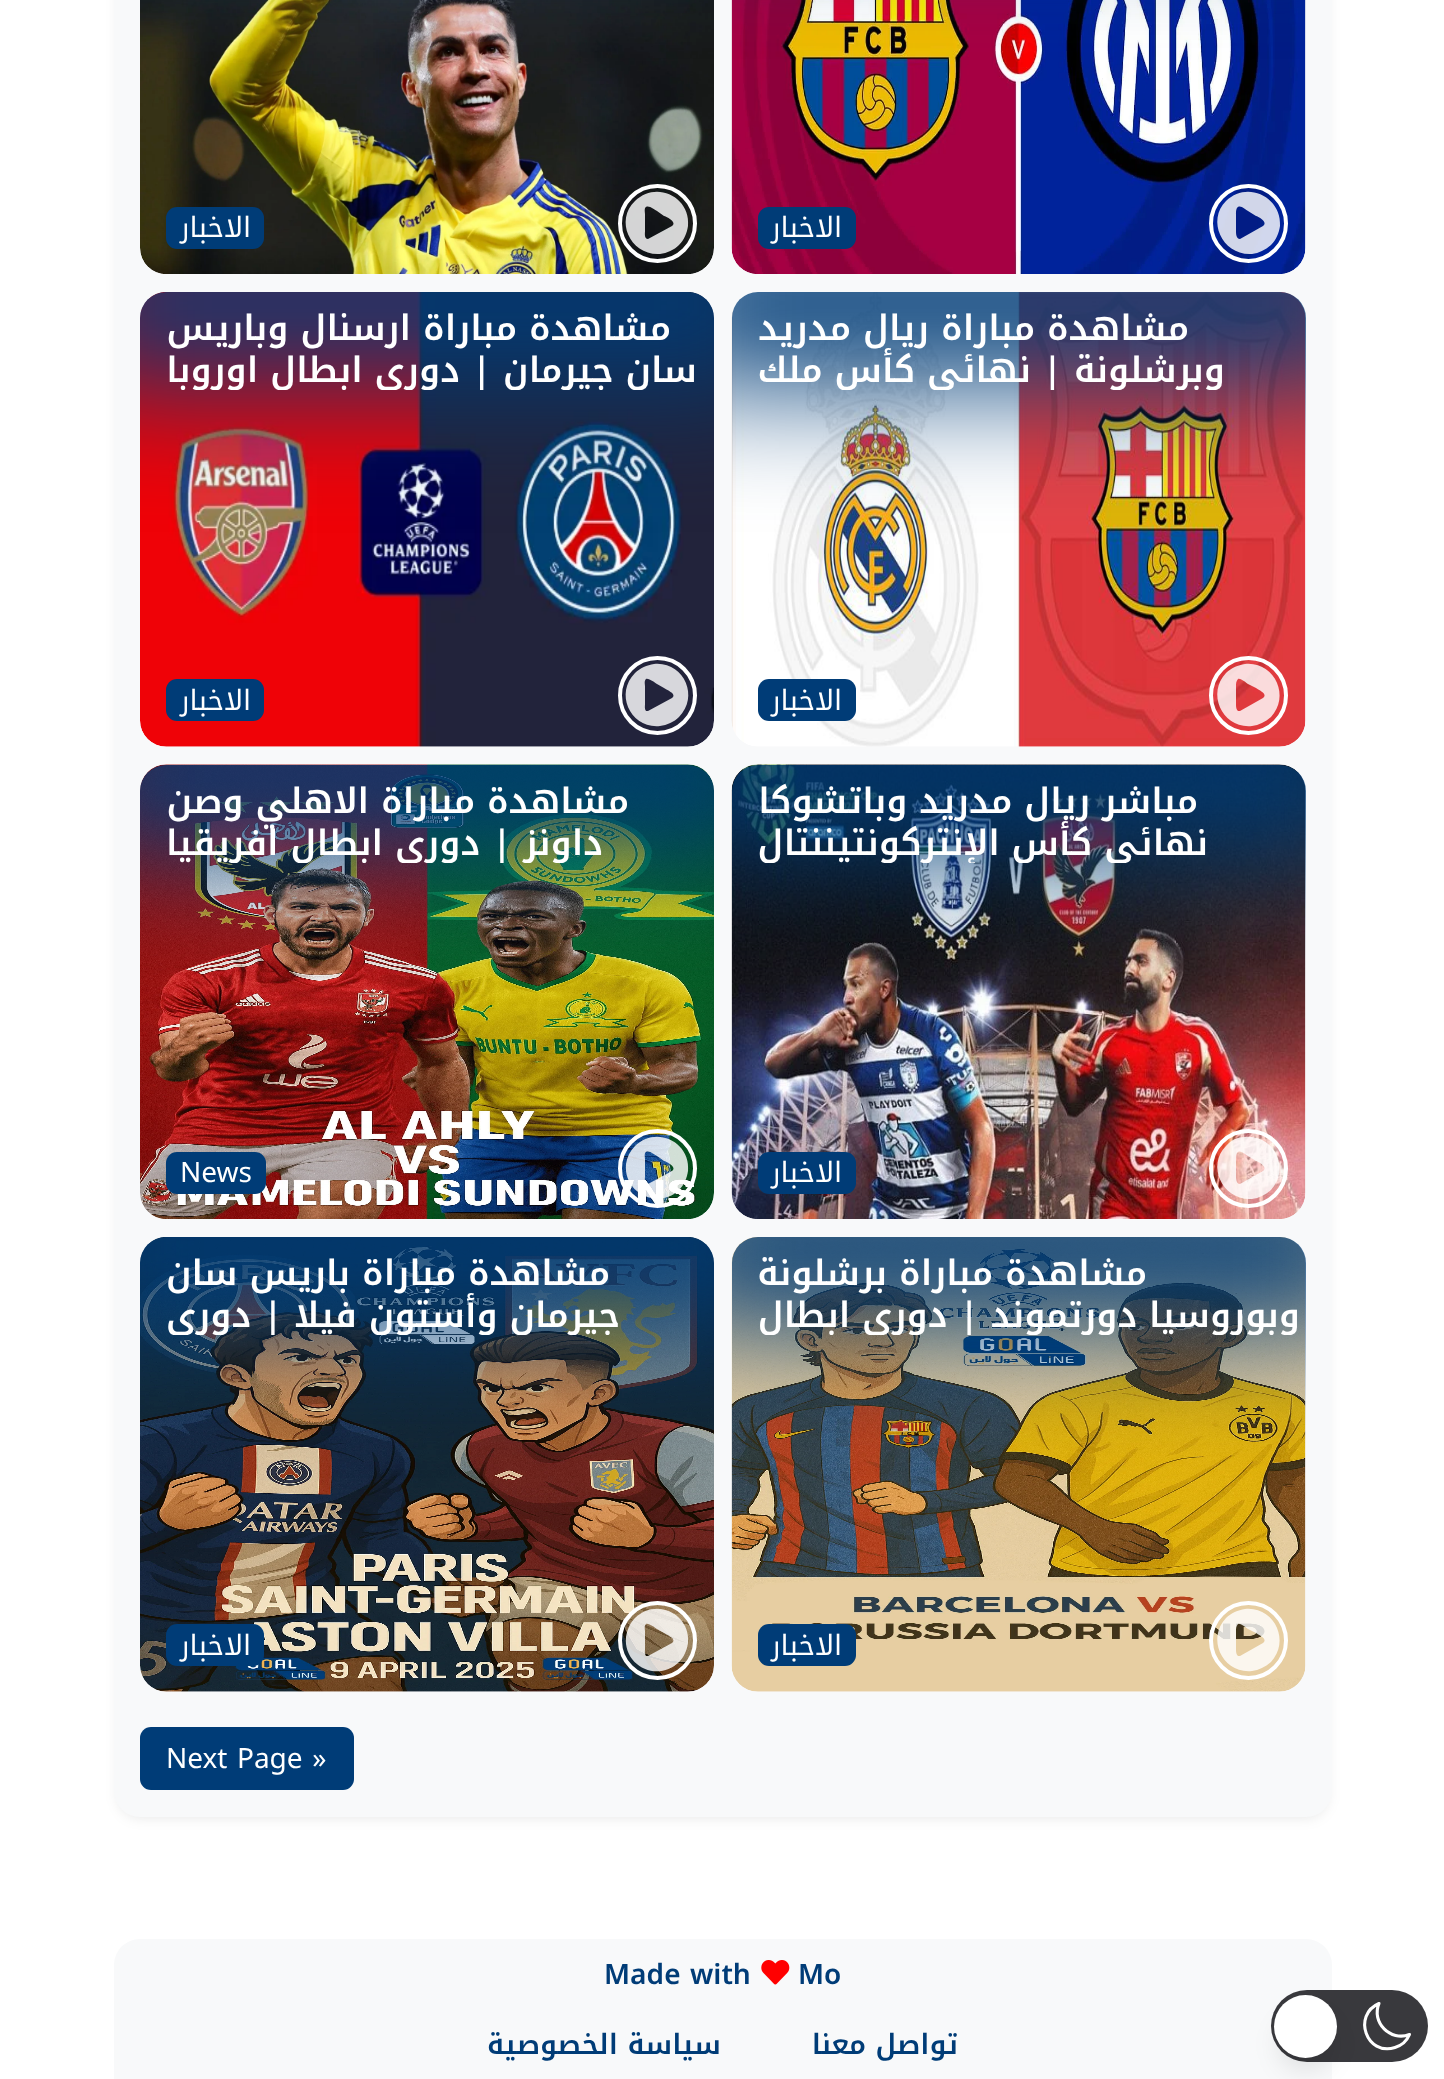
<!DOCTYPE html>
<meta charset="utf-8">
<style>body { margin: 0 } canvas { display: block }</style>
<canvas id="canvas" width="1444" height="2079"></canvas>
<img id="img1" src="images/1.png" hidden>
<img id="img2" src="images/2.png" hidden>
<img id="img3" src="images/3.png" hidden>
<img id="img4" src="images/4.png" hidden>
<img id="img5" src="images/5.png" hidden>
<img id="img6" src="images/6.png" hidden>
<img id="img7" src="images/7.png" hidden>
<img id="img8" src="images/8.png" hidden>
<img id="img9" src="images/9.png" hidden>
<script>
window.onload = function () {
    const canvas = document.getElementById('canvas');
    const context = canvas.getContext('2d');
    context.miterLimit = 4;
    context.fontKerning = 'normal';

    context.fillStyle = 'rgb(255, 255, 255)';
    context.fillRect(0, 0, 1444, 2079);
    context.fillStyle = 'rgba(0, 0, 0, 0.1)';
    context.filter = 'blur(7px)';
    context.beginPath();
    context.roundRect(119, -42, 1208, 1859, 21);
    context.fill();
    context.filter = 'none';
    context.fillStyle = 'rgb(248, 249, 250)';
    context.beginPath();
    context.roundRect(114, -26, 1218, 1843, 26);
    context.fill();
    context.drawImage(document.getElementById('img1'), 731, 0, 575, 274);
    context.drawImage(document.getElementById('img2'), 140, 0, 574, 274);
    context.save();
    context.beginPath();
    context.roundRect(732, -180, 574, 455, 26);
    context.clip();
    context.fillStyle = 'rgb(0, 60, 119)';
    context.filter = 'blur(63px)';
    context.beginPath();
    context.rect(653, -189, 731, 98);
    context.fill();
    context.filter = 'none';
    context.restore();
    context.fillStyle = 'rgba(255, 255, 255, 0.82)';
    context.beginPath();
    context.moveTo(1226, 201);
    context.bezierCurveTo(1247, 180, 1282, 197, 1280, 226);
    context.bezierCurveTo(1279, 233, 1276, 240, 1271, 245);
    context.bezierCurveTo(1265, 250, 1259, 253, 1252, 254);
    context.bezierCurveTo(1223, 256, 1206, 221, 1226, 201);
    context.closePath();
    context.moveTo(1263, 226);
    context.bezierCurveTo(1269, 222, 1257, 216, 1256, 216);
    context.lineTo(1248, 211);
    context.bezierCurveTo(1246, 210, 1241, 205, 1238, 207);
    context.bezierCurveTo(1236, 208, 1236, 212, 1236, 214);
    context.lineTo(1236, 231);
    context.bezierCurveTo(1236, 233, 1236, 239, 1240, 239);
    context.closePath();
    context.fill();
    context.beginPath();
    context.arc(1248.5, 223.5, 37.5, 0, 2 * Math.PI);
    context.strokeStyle = 'rgb(255, 255, 255)';
    context.lineWidth = 4;
    context.stroke();
    context.fillStyle = 'rgb(0, 60, 119)';
    context.beginPath();
    context.roundRect(758, 207, 98, 42, 11);
    context.fill();
    context.save();
    context.beginPath();
    context.roundRect(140, -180, 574, 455, 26);
    context.clip();
    context.filter = 'blur(63px)';
    context.beginPath();
    context.rect(61, -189, 732, 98);
    context.fill();
    context.filter = 'none';
    context.restore();
    context.fillStyle = 'rgba(255, 255, 255, 0.82)';
    context.beginPath();
    context.moveTo(635, 201);
    context.bezierCurveTo(656, 180, 691, 197, 688, 226);
    context.bezierCurveTo(687, 233, 684, 240, 679, 245);
    context.bezierCurveTo(674, 250, 667, 253, 660, 254);
    context.bezierCurveTo(631, 256, 614, 221, 635, 201);
    context.closePath();
    context.moveTo(672, 226);
    context.bezierCurveTo(678, 222, 665, 216, 664, 216);
    context.lineTo(657, 211);
    context.bezierCurveTo(655, 210, 649, 205, 646, 207);
    context.bezierCurveTo(644, 208, 645, 212, 645, 214);
    context.lineTo(645, 231);
    context.bezierCurveTo(645, 233, 644, 239, 648, 239);
    context.closePath();
    context.fill();
    context.beginPath();
    context.arc(657.5, 223.5, 37.5, 0, 2 * Math.PI);
    context.stroke();
    context.fillStyle = 'rgb(0, 60, 119)';
    context.beginPath();
    context.roundRect(166, 207, 98, 42, 11);
    context.fill();
    context.drawImage(document.getElementById('img3'), 731, 292, 575, 455);
    context.drawImage(document.getElementById('img4'), 140, 292, 574, 455);
    context.save();
    context.beginPath();
    context.roundRect(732, 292, 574, 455, 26);
    context.clip();
    context.filter = 'blur(63px)';
    context.beginPath();
    context.rect(653, 224, 731, 158);
    context.fill();
    context.filter = 'none';
    context.restore();
    context.fillStyle = 'rgba(255, 255, 255, 0.82)';
    context.beginPath();
    context.moveTo(1226, 673);
    context.bezierCurveTo(1231, 668, 1238, 665, 1245, 664);
    context.bezierCurveTo(1274, 661, 1291, 696, 1271, 717);
    context.bezierCurveTo(1265, 722, 1259, 725, 1252, 726);
    context.bezierCurveTo(1223, 729, 1206, 694, 1226, 673);
    context.closePath();
    context.moveTo(1263, 698);
    context.bezierCurveTo(1269, 694, 1257, 689, 1256, 688);
    context.lineTo(1248, 684);
    context.bezierCurveTo(1246, 683, 1241, 678, 1238, 679);
    context.bezierCurveTo(1236, 681, 1236, 684, 1236, 686);
    context.lineTo(1236, 704);
    context.bezierCurveTo(1236, 706, 1236, 712, 1240, 711);
    context.closePath();
    context.fill();
    context.beginPath();
    context.arc(1248.5, 695.5, 37.5, 0, 2 * Math.PI);
    context.stroke();
    context.fillStyle = 'rgb(0, 60, 119)';
    context.beginPath();
    context.roundRect(758, 679, 98, 42, 11);
    context.fill();
    context.save();
    context.beginPath();
    context.roundRect(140, 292, 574, 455, 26);
    context.clip();
    context.filter = 'blur(63px)';
    context.beginPath();
    context.rect(61, 224, 732, 158);
    context.fill();
    context.filter = 'none';
    context.restore();
    context.fillStyle = 'rgb(215, 215, 220)';
    context.beginPath();
    context.moveTo(635, 673);
    context.bezierCurveTo(640, 668, 647, 665, 654, 664);
    context.bezierCurveTo(683, 661, 700, 696, 679, 717);
    context.bezierCurveTo(674, 722, 667, 725, 660, 726);
    context.bezierCurveTo(631, 729, 614, 694, 635, 673);
    context.closePath();
    context.moveTo(672, 698);
    context.bezierCurveTo(678, 694, 665, 689, 664, 688);
    context.lineTo(657, 684);
    context.bezierCurveTo(655, 683, 649, 678, 646, 679);
    context.bezierCurveTo(644, 681, 645, 684, 645, 686);
    context.lineTo(645, 704);
    context.bezierCurveTo(645, 706, 644, 712, 648, 711);
    context.closePath();
    context.fill();
    context.beginPath();
    context.arc(657.5, 695.5, 37.5, 0, 2 * Math.PI);
    context.stroke();
    context.fillStyle = 'rgb(0, 60, 119)';
    context.beginPath();
    context.roundRect(166, 679, 98, 42, 11);
    context.fill();
    context.drawImage(document.getElementById('img5'), 731, 764, 575, 455);
    context.drawImage(document.getElementById('img6'), 140, 764, 574, 455);
    context.save();
    context.beginPath();
    context.roundRect(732, 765, 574, 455, 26);
    context.clip();
    context.filter = 'blur(63px)';
    context.beginPath();
    context.rect(653, 697, 731, 157);
    context.fill();
    context.filter = 'none';
    context.restore();
    context.fillStyle = 'rgba(255, 255, 255, 0.82)';
    context.beginPath();
    context.moveTo(1226, 1146);
    context.bezierCurveTo(1231, 1140, 1238, 1137, 1245, 1137);
    context.bezierCurveTo(1274, 1134, 1291, 1169, 1271, 1190);
    context.bezierCurveTo(1265, 1195, 1259, 1198, 1252, 1199);
    context.bezierCurveTo(1223, 1201, 1206, 1166, 1226, 1146);
    context.closePath();
    context.moveTo(1263, 1171);
    context.bezierCurveTo(1269, 1167, 1257, 1161, 1256, 1161);
    context.lineTo(1248, 1156);
    context.bezierCurveTo(1246, 1155, 1241, 1150, 1238, 1152);
    context.bezierCurveTo(1236, 1153, 1236, 1157, 1236, 1159);
    context.lineTo(1236, 1176);
    context.bezierCurveTo(1236, 1178, 1236, 1184, 1240, 1184);
    context.closePath();
    context.fill();
    context.beginPath();
    context.arc(1248.5, 1168.5, 37.5, 0, 2 * Math.PI);
    context.stroke();
    context.fillStyle = 'rgb(0, 60, 119)';
    context.beginPath();
    context.roundRect(758, 1152, 98, 42, 11);
    context.fill();
    context.save();
    context.beginPath();
    context.roundRect(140, 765, 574, 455, 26);
    context.clip();
    context.filter = 'blur(63px)';
    context.beginPath();
    context.rect(61, 697, 732, 157);
    context.fill();
    context.filter = 'none';
    context.restore();
    context.fillStyle = 'rgba(255, 255, 255, 0.82)';
    context.beginPath();
    context.moveTo(635, 1146);
    context.bezierCurveTo(656, 1125, 691, 1142, 688, 1171);
    context.bezierCurveTo(687, 1178, 684, 1185, 679, 1190);
    context.bezierCurveTo(658, 1210, 623, 1193, 626, 1164);
    context.bezierCurveTo(627, 1157, 630, 1151, 635, 1146);
    context.closePath();
    context.moveTo(672, 1171);
    context.bezierCurveTo(678, 1167, 665, 1161, 664, 1161);
    context.lineTo(657, 1156);
    context.bezierCurveTo(655, 1155, 649, 1150, 646, 1152);
    context.bezierCurveTo(644, 1153, 645, 1157, 645, 1159);
    context.lineTo(645, 1176);
    context.bezierCurveTo(645, 1178, 644, 1184, 648, 1184);
    context.closePath();
    context.fill();
    context.beginPath();
    context.arc(657.5, 1168.5, 37.5, 0, 2 * Math.PI);
    context.stroke();
    context.fillStyle = 'rgb(0, 60, 119)';
    context.beginPath();
    context.roundRect(166, 1152, 100, 42, 11);
    context.fill();
    context.drawImage(document.getElementById('img7'), 731, 1237, 575, 455);
    context.drawImage(document.getElementById('img8'), 140, 1237, 574, 455);
    context.save();
    context.beginPath();
    context.roundRect(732, 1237, 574, 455, 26);
    context.clip();
    context.filter = 'blur(63px)';
    context.beginPath();
    context.rect(653, 1169, 731, 158);
    context.fill();
    context.filter = 'none';
    context.restore();
    context.fillStyle = 'rgba(255, 255, 255, 0.82)';
    context.beginPath();
    context.moveTo(1226, 1618);
    context.bezierCurveTo(1231, 1613, 1238, 1610, 1245, 1609);
    context.bezierCurveTo(1274, 1606, 1291, 1641, 1271, 1662);
    context.bezierCurveTo(1265, 1667, 1259, 1670, 1252, 1671);
    context.bezierCurveTo(1223, 1674, 1206, 1639, 1226, 1618);
    context.closePath();
    context.moveTo(1263, 1643);
    context.bezierCurveTo(1269, 1639, 1257, 1634, 1256, 1633);
    context.lineTo(1248, 1629);
    context.bezierCurveTo(1246, 1628, 1241, 1623, 1238, 1624);
    context.bezierCurveTo(1236, 1626, 1236, 1629, 1236, 1631);
    context.lineTo(1236, 1649);
    context.bezierCurveTo(1236, 1651, 1236, 1657, 1240, 1656);
    context.closePath();
    context.fill();
    context.beginPath();
    context.arc(1248.5, 1640.5, 37.5, 0, 2 * Math.PI);
    context.stroke();
    context.fillStyle = 'rgb(0, 60, 119)';
    context.beginPath();
    context.roundRect(758, 1624, 98, 42, 11);
    context.fill();
    context.save();
    context.beginPath();
    context.roundRect(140, 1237, 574, 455, 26);
    context.clip();
    context.filter = 'blur(63px)';
    context.beginPath();
    context.rect(61, 1169, 732, 158);
    context.fill();
    context.filter = 'none';
    context.restore();
    context.fillStyle = 'rgba(255, 255, 255, 0.82)';
    context.beginPath();
    context.moveTo(635, 1618);
    context.bezierCurveTo(656, 1597, 691, 1614, 688, 1643);
    context.bezierCurveTo(687, 1650, 684, 1657, 679, 1662);
    context.bezierCurveTo(658, 1683, 623, 1666, 626, 1637);
    context.bezierCurveTo(627, 1630, 630, 1623, 635, 1618);
    context.closePath();
    context.moveTo(672, 1643);
    context.bezierCurveTo(678, 1639, 665, 1634, 664, 1633);
    context.lineTo(657, 1629);
    context.bezierCurveTo(655, 1628, 649, 1623, 646, 1624);
    context.bezierCurveTo(644, 1626, 645, 1629, 645, 1631);
    context.lineTo(645, 1649);
    context.bezierCurveTo(645, 1651, 644, 1657, 648, 1656);
    context.closePath();
    context.fill();
    context.beginPath();
    context.arc(657.5, 1640.5, 37.5, 0, 2 * Math.PI);
    context.stroke();
    context.fillStyle = 'rgb(0, 60, 119)';
    context.beginPath();
    context.roundRect(166, 1624, 98, 42, 11);
    context.fill();
    context.beginPath();
    context.roundRect(140, 1727, 214, 63, 11);
    context.fill();
    context.fillStyle = 'rgb(248, 249, 250)';
    context.beginPath();
    context.roundRect(114, 1939, 1218, 140, [26, 26, 0, 0]);
    context.fill();
    context.fillStyle = 'rgb(57, 57, 61)';
    context.beginPath();
    context.roundRect(1271, 1990, 157, 72, 36);
    context.fill();
    context.beginPath();
    context.moveTo(1409.5, 2034.5);
    context.bezierCurveTo(1390.5, 2042, 1371, 2022.5, 1379, 2003.5);
    context.bezierCurveTo(1352, 2015, 1366.5, 2056.5, 1395, 2047.5);
    context.bezierCurveTo(1401.5, 2045.5, 1407, 2040.5, 1409.5, 2034.5);
    context.closePath();
    context.lineWidth = 3.1;
    context.lineCap = 'round';
    context.lineJoin = 'round';
    context.stroke();
    context.fillStyle = 'rgba(0, 0, 0, 0.1)';
    context.filter = 'blur(13px)';
    context.beginPath();
    context.roundRect(1279, 2018, 53, 52, 26);
    context.fill();
    context.filter = 'none';
    context.fillStyle = 'rgb(255, 255, 255)';
    context.beginPath();
    context.arc(1305.5, 2026.5, 31.5, 0, 2 * Math.PI);
    context.fill();
    context.drawImage(document.getElementById('img9'), 761, 1960, 29, 25);
    context.direction = 'rtl';
    context.font = '28px Noto Kufi Arabic';
    context.fillText('الاخبار', 842, 237);
    context.fillText('الاخبار', 251, 237);
    context.font = '600 35px Noto Kufi Arabic';
    context.fillText('مشاهدة مباراة ريال مدريد', 1189, 340);
    context.save();
    context.beginPath();
    context.rect(758, 306, 548, 84);
    context.clip();
    context.fillText('وبرشلونة | نهائي كأس ملك', 1225, 382);
    context.restore();
    context.font = '28px Noto Kufi Arabic';
    context.fillText('الاخبار', 842, 710);
    context.font = '600 35px Noto Kufi Arabic';
    context.fillText('مشاهدة مباراة ارسنال وباريس', 671, 340);
    context.save();
    context.beginPath();
    context.rect(166, 306, 548, 84);
    context.clip();
    context.fillText('سان جيرمان | دوري ابطال اوروبا', 697, 382);
    context.restore();
    context.font = '28px Noto Kufi Arabic';
    context.fillText('الاخبار', 251, 710);
    context.font = '600 35px Noto Kufi Arabic';
    context.fillText('مباشر ريال مدريد وباتشوكا', 1198, 813);
    context.save();
    context.beginPath();
    context.rect(758, 779, 548, 84);
    context.clip();
    context.fillText('نهائي كأس الإنتركونتيننتال', 1208, 855);
    context.restore();
    context.font = '28px Noto Kufi Arabic';
    context.fillText('الاخبار', 842, 1182);
    context.font = '600 35px Noto Kufi Arabic';
    context.fillText('مشاهدة مباراة الاهلي وصن', 629, 813);
    context.save();
    context.beginPath();
    context.rect(166, 779, 548, 84);
    context.clip();
    context.fillText('داونز | دوري ابطال افريقيا', 603, 855);
    context.restore();
    context.direction = 'ltr';
    context.font = '28px Noto Kufi Arabic';
    context.fillText('News', 180, 1182);
    context.direction = 'rtl';
    context.font = '600 35px Noto Kufi Arabic';
    context.fillText('مشاهدة مباراة برشلونة', 1147, 1285);
    context.save();
    context.beginPath();
    context.rect(758, 1251, 548, 84);
    context.clip();
    context.fillText('وبوروسيا دورتموند | دوري ابطال', 1300, 1327);
    context.restore();
    context.font = '28px Noto Kufi Arabic';
    context.fillText('الاخبار', 842, 1655);
    context.font = '600 35px Noto Kufi Arabic';
    context.fillText('مشاهدة مباراة باريس سان', 610, 1285);
    context.save();
    context.beginPath();
    context.rect(166, 1251, 548, 84);
    context.clip();
    context.fillText('جيرمان وأستون فيلا | دوري', 620, 1327);
    context.restore();
    context.font = '28px Noto Kufi Arabic';
    context.fillText('الاخبار', 251, 1655);
    context.direction = 'ltr';
    context.fillText('Next Page »', 166, 1768);
    context.font = '600 28px Noto Kufi Arabic';
    context.fillStyle = 'rgb(0, 60, 119)';
    context.fillText('Mo', 798, 1984);
    context.fillText('Made with', 604, 1984);
    context.direction = 'rtl';
    context.fillText('تواصل معنا', 958, 2054);
    context.fillText('سياسة الخصوصية', 721, 2054);
};
</script>
